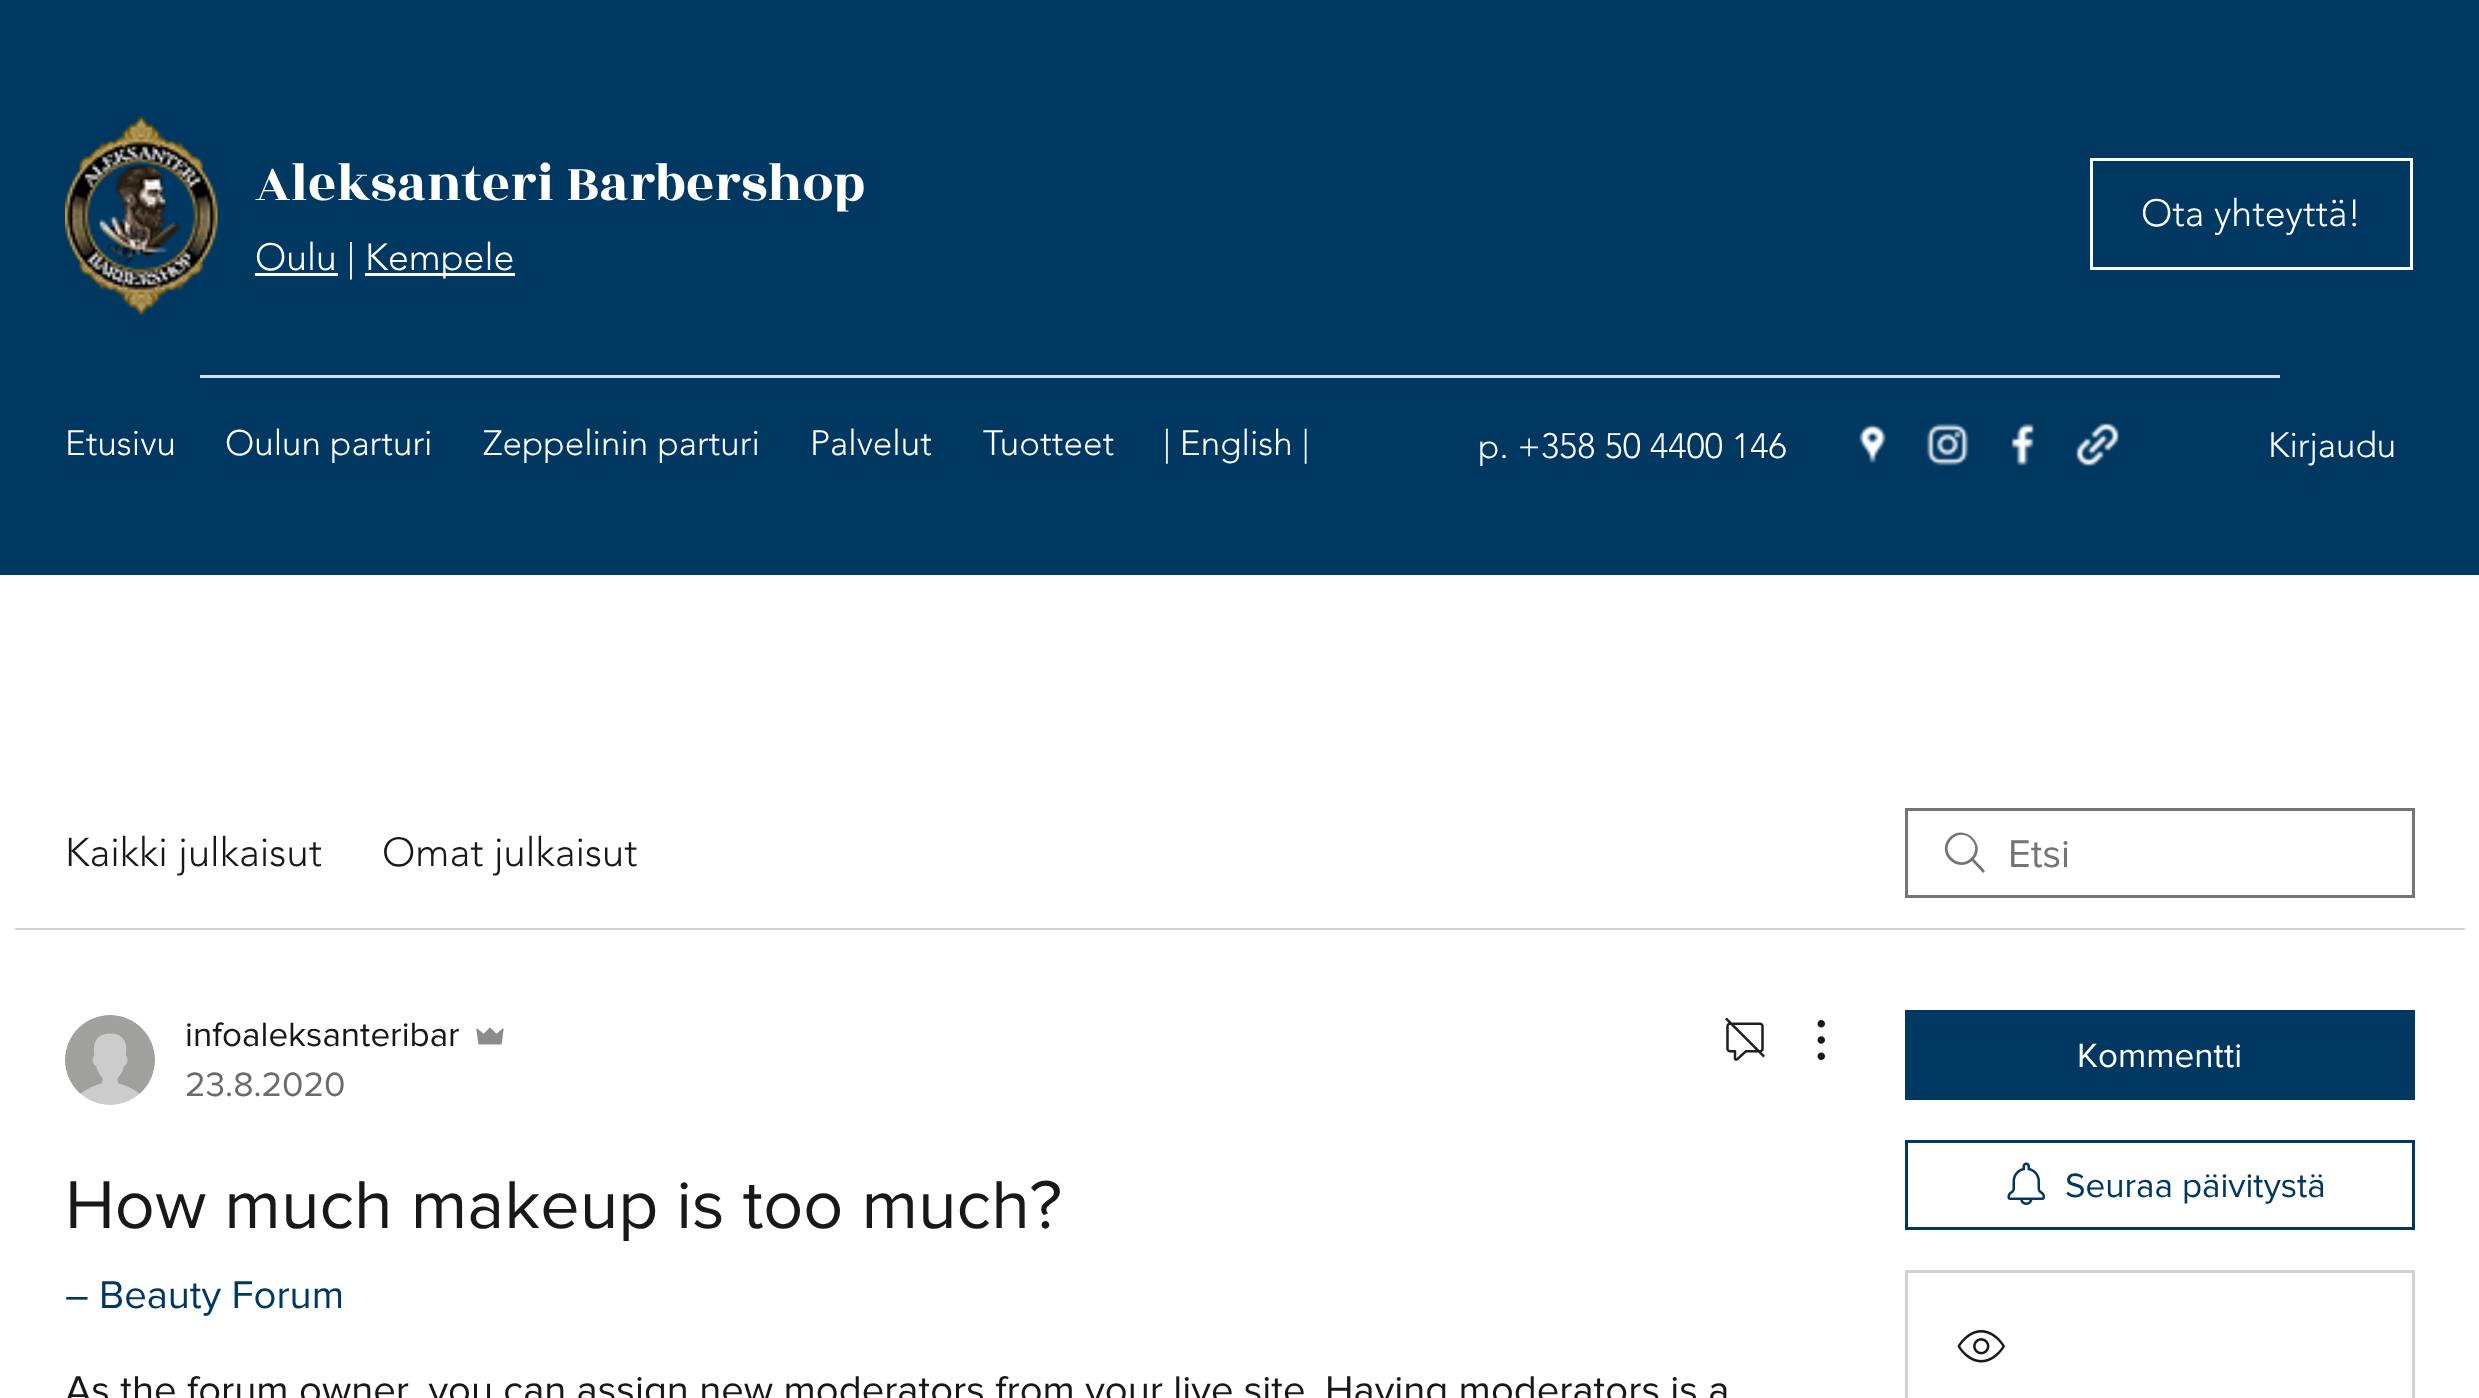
<!DOCTYPE html>
<meta charset="utf-8">
<style>body { margin: 0 } canvas { display: block }</style>
<canvas id="canvas" width="2479" height="1398"></canvas>
<img id="img1" src="images/1.png" hidden>
<img id="img2" src="images/2.png" hidden>
<img id="img3" src="images/3.png" hidden>
<img id="img4" src="images/4.png" hidden>
<img id="img5" src="images/5.png" hidden>
<img id="img6" src="images/6.png" hidden>
<img id="img7" src="images/7.png" hidden>
<img id="img8" src="images/8.png" hidden>
<img id="img9" src="images/9.png" hidden>
<img id="img10" src="images/10.png" hidden>
<img id="img11" src="images/11.png" hidden>
<script>
window.onload = function () {
    const canvas = document.getElementById('canvas');
    const context = canvas.getContext('2d');
    context.miterLimit = 4;
    context.fontKerning = 'normal';

    context.fillStyle = 'rgb(255, 255, 255)';
    context.fillRect(0, 0, 2479, 1398);
    context.fillStyle = 'rgb(0, 56, 98)';
    context.fillRect(0, 0, 2479, 575);
    context.drawImage(document.getElementById('img1'), 65, 116, 153, 199);
    context.fillStyle = 'rgb(255, 255, 255)';
    context.fillRect(255, 273, 83, 3);
    context.fillRect(365, 273, 150, 3);
    context.strokeStyle = 'rgb(255, 255, 255)';
    context.lineWidth = 3;
    context.strokeRect(2091.5, 159.5, 320, 109);
    context.fillStyle = 'rgb(217, 225, 231)';
    context.fillRect(200, 375, 2080, 3);
    context.drawImage(document.getElementById('img2'), 1859, 424, 28, 40);
    context.drawImage(document.getElementById('img3'), 1926, 423, 43, 43);
    context.drawImage(document.getElementById('img4'), 2011, 423, 24, 43);
    context.drawImage(document.getElementById('img5'), 2075, 422, 45, 45);
    context.fillStyle = 'rgb(209, 209, 209)';
    context.fillRect(15, 928, 2450, 2);
    context.fillStyle = 'rgb(116, 116, 116)';
    context.beginPath();
    context.moveTo(1952, 858);
    context.bezierCurveTo(1939, 846, 1958, 826, 1971, 839);
    context.bezierCurveTo(1984, 852, 1964, 871, 1952, 858);
    context.closePath();
    context.moveTo(1985, 871);
    context.lineTo(1974, 859);
    context.bezierCurveTo(1987, 844, 1964, 823, 1950, 837);
    context.bezierCurveTo(1935, 852, 1956, 874, 1972, 861);
    context.lineTo(1983, 873);
    context.closePath();
    context.fill('evenodd');
    context.strokeStyle = 'rgb(116, 116, 116)';
    context.strokeRect(1906.5, 809.5, 507, 87);
    context.drawImage(document.getElementById('img6'), 65, 1015, 90, 90);
    context.drawImage(document.getElementById('img7'), 476, 1027, 28, 18);
    context.drawImage(document.getElementById('img8'), 1725, 1018, 40, 43);
    context.drawImage(document.getElementById('img9'), 1817, 1020, 8, 40);
    context.fillStyle = 'rgb(0, 56, 98)';
    context.fillRect(1905, 1010, 510, 90);
    context.strokeStyle = 'rgb(0, 56, 98)';
    context.strokeRect(1906.5, 1141.5, 507, 87);
    context.drawImage(document.getElementById('img10'), 2007, 1162, 38, 43);
    context.strokeStyle = 'rgb(209, 209, 209)';
    context.strokeRect(1906.5, 1271.5, 507, 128);
    context.drawImage(document.getElementById('img11'), 1957, 1330, 48, 33);
    context.font = '55px Rozha One';
    context.fillStyle = 'rgb(255, 255, 255)';
    context.fillText('Aleksanteri Barbershop', 255, 200);
    context.font = '300 37.5px "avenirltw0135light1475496"';
    context.fillText('Oulu |', 255, 270);
    context.fillText('Kempele', 365, 270);
    context.fillText('Ota yhteyttä!', 2141, 226);
    context.font = '300 35px "avenirltw0135light1475496"';
    context.fillText('Etusivu', 65, 455);
    context.fillText('Oulun parturi', 225, 455);
    context.fillText('Zeppelinin parturi', 483, 455);
    context.fillText('Palvelut', 810, 455);
    context.fillText('Tuotteet', 983, 455);
    context.fillText('| English |', 1163, 455);
    context.fillText('p. +358 50 4400 146', 1478, 458);
    context.fillText('Kirjaudu', 2268, 457);
    context.font = '300 40px "avenirltw0135light1475496"';
    context.fillStyle = 'rgb(24, 24, 24)';
    context.fillText('Kaikki julkaisut', 65, 866);
    context.fillText('Omat julkaisut', 382, 866);
    context.font = '40px "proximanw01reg"';
    context.fillStyle = 'rgb(116, 116, 116)';
    context.fillText('Etsi', 2008, 867);
    context.font = '35px "proximanw01reg"';
    context.fillStyle = 'rgb(24, 24, 24)';
    context.fillText('infoaleksanteribar', 185, 1046);
    context.fillStyle = 'rgb(107, 107, 107)';
    context.fillText('23.8.2020', 185, 1096);
    context.font = '70px "proximanw01reg"';
    context.fillStyle = 'rgb(24, 24, 24)';
    context.fillText('How much makeup is too much?', 65, 1228);
    context.font = '40px "proximanw01reg"';
    context.fillStyle = 'rgb(0, 56, 98)';
    context.fillText('– Beauty Forum', 65, 1308);
    context.fillStyle = 'rgb(24, 24, 24)';
    context.fillText('As the forum owner, you can assign new moderators from your live site. Having moderators is a', 65, 1403);
    context.font = '35px "proximanw01reg"';
    context.fillStyle = 'rgb(255, 255, 255)';
    context.fillText('Kommentti', 2077, 1067);
    context.fillStyle = 'rgb(0, 56, 98)';
    context.fillText('Seuraa päivitystä', 2065, 1197);
};
</script>
